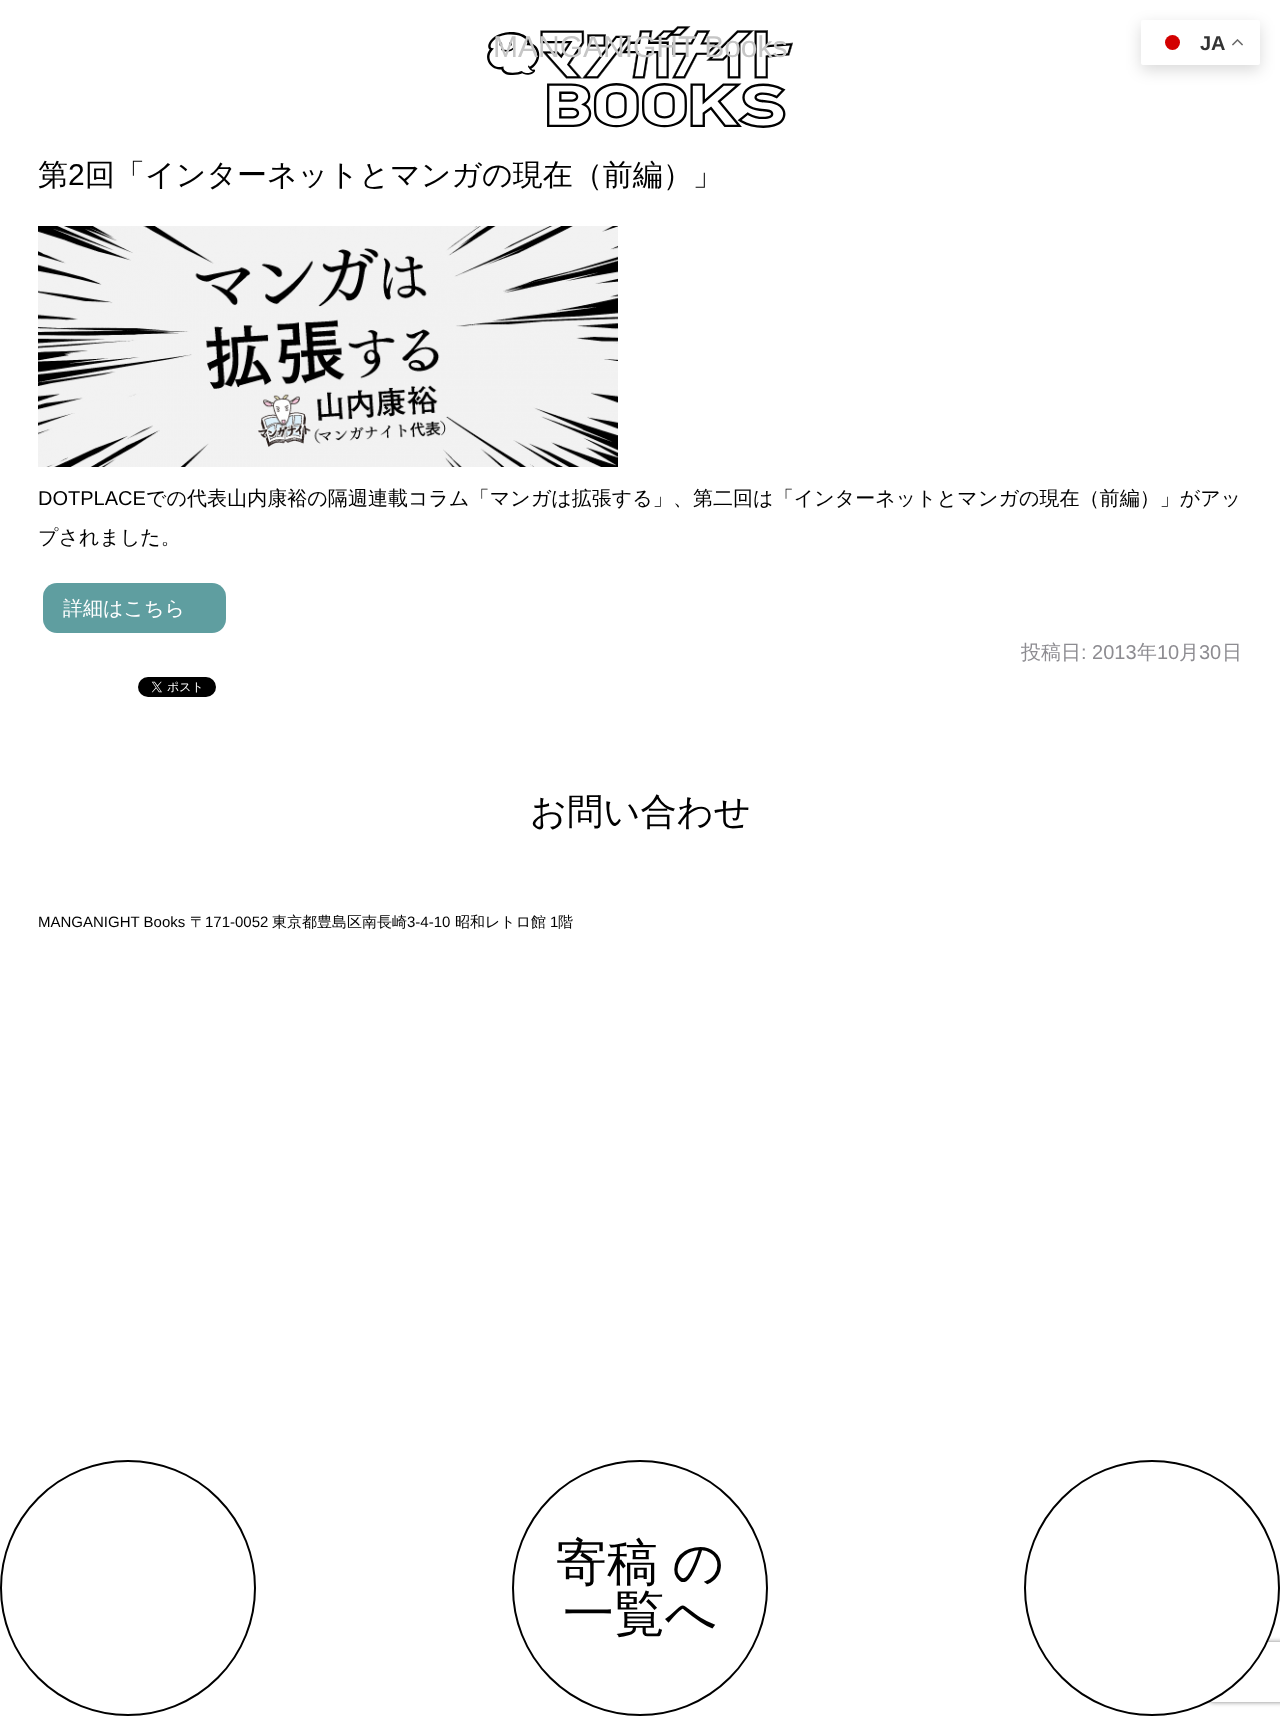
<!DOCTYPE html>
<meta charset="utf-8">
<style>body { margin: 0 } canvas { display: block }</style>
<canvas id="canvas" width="1280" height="1716"></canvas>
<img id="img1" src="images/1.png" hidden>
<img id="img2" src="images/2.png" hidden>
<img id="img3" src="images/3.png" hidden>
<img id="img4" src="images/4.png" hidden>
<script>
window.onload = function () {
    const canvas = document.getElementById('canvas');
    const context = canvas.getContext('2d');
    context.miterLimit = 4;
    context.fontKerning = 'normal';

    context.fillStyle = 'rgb(255, 255, 255)';
    context.fillRect(0, 0, 1280, 1716);
    context.drawImage(document.getElementById('img1'), 487, 26, 306, 102);
    context.beginPath();
    context.arc(128, 1588, 127, 0, 2 * Math.PI);
    context.strokeStyle = 'rgb(0, 0, 0)';
    context.lineWidth = 2;
    context.stroke();
    context.beginPath();
    context.arc(640, 1588, 127, 0, 2 * Math.PI);
    context.stroke();
    context.save();
    context.beginPath();
    context.moveTo(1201, 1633);
    context.lineTo(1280, 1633);
    context.lineTo(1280, 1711);
    context.lineTo(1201, 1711);
    context.closePath();
    context.moveTo(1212, 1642);
    context.lineTo(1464, 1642);
    context.bezierCurveTo(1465, 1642, 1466, 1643, 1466, 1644);
    context.lineTo(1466, 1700);
    context.bezierCurveTo(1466, 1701, 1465, 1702, 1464, 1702);
    context.lineTo(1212, 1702);
    context.bezierCurveTo(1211, 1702, 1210, 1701, 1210, 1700);
    context.lineTo(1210, 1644);
    context.bezierCurveTo(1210, 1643, 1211, 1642, 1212, 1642);
    context.closePath();
    context.clip('evenodd');
    context.fillStyle = 'rgb(128, 128, 128)';
    context.filter = 'blur(2.5px)';
    context.beginPath();
    context.roundRect(1210, 1642, 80, 60, 2);
    context.fill();
    context.filter = 'none';
    context.restore();
    context.beginPath();
    context.arc(1152, 1588, 127, 0, 2 * Math.PI);
    context.fill();
    context.stroke();
    context.drawImage(document.getElementById('img2'), 38, 226, 580, 241);
    context.fillStyle = 'rgb(95, 158, 160)';
    context.beginPath();
    context.roundRect(43, 583, 183, 50, 14);
    context.fill();
    context.drawImage(document.getElementById('img3'), 138, 677, 78, 20);
    context.fillStyle = 'rgba(0, 0, 0, 0.15)';
    context.filter = 'blur(7.5px)';
    context.beginPath();
    context.roundRect(1141, 25, 119, 45, 2);
    context.fill();
    context.filter = 'none';
    context.fillStyle = 'rgb(255, 255, 255)';
    context.beginPath();
    context.roundRect(1141, 20, 119, 45, 2);
    context.fill();
    context.fillStyle = 'rgb(211, 0, 0)';
    context.beginPath();
    context.arc(1172.5, 42.5, 7.5, 0, 2 * Math.PI);
    context.fill();
    context.drawImage(document.getElementById('img4'), 1232, 39, 11, 7);
    context.font = '30px Liberation Sans';
    context.fillStyle = 'rgb(198, 198, 198)';
    context.fillText('MANGANIGHT Books', 493, 57);
    context.wordSpacing = '-1px';
    context.font = '500 51px WenQuanYi Zen Hei';
    context.fillStyle = 'rgb(0, 0, 0)';
    context.fillText('寄稿 の', 556, 1580);
    context.wordSpacing = '0px';
    context.fillText('一覧へ', 563, 1631);
    context.font = '500 30px WenQuanYi Zen Hei';
    context.fillText('第', 38, 185);
    context.font = '30px Liberation Sans';
    context.fillText('2', 68, 185);
    context.font = '500 30px WenQuanYi Zen Hei';
    context.fillText('回「インターネットとマンガの現在（前編）」', 85, 185);
    context.font = '20px Liberation Sans';
    context.fillText('DOTPLACE', 38, 505);
    context.letterSpacing = '0.05px';
    context.font = '500 20px WenQuanYi Zen Hei';
    context.fillText('での代表山内康裕の隔週連載コラム「マンガは拡張する」、第二回は「インターネットとマンガの現在（前編）」がアッ', 146, 505);
    context.letterSpacing = '0px';
    context.fillText('プされました。', 38, 544);
    context.fillStyle = 'rgb(255, 255, 255)';
    context.fillText('詳細はこちら', 63, 615);
    context.fillStyle = 'rgb(141, 140, 145)';
    context.fillText('投稿日', 1021, 659);
    context.font = '20px Liberation Sans';
    context.fillText(': 2013', 1081, 659);
    context.font = '500 20px WenQuanYi Zen Hei';
    context.fillText('年', 1137, 659);
    context.font = '20px Liberation Sans';
    context.fillText('10', 1157, 659);
    context.font = '500 20px WenQuanYi Zen Hei';
    context.fillText('月', 1179, 659);
    context.font = '20px Liberation Sans';
    context.fillText('30', 1199, 659);
    context.font = '500 20px WenQuanYi Zen Hei';
    context.fillText('日', 1222, 659);
    context.font = '500 36.25px WenQuanYi Zen Hei';
    context.fillStyle = 'rgb(0, 0, 0)';
    context.fillText('お問い合わせ', 530, 824);
    context.font = '15px Liberation Sans';
    context.fillText('MANGANIGHT Books', 38, 927);
    context.font = '500 15px WenQuanYi Zen Hei';
    context.fillText('〒', 190, 927);
    context.font = '15px Liberation Sans';
    context.fillText('171-0052', 205, 927);
    context.font = '500 15px WenQuanYi Zen Hei';
    context.fillText('東京都豊島区南長崎', 272, 927);
    context.font = '15px Liberation Sans';
    context.fillText('3-4-10', 407, 927);
    context.font = '500 15px WenQuanYi Zen Hei';
    context.fillText('昭和レトロ館', 455, 927);
    context.font = '15px Liberation Sans';
    context.fillText('1', 550, 927);
    context.font = '500 15px WenQuanYi Zen Hei';
    context.fillText('階', 558, 927);
    context.font = 'bold 20px Liberation Sans';
    context.fillStyle = 'rgb(51, 51, 51)';
    context.fillText('JA', 1200, 50);
};
</script>
